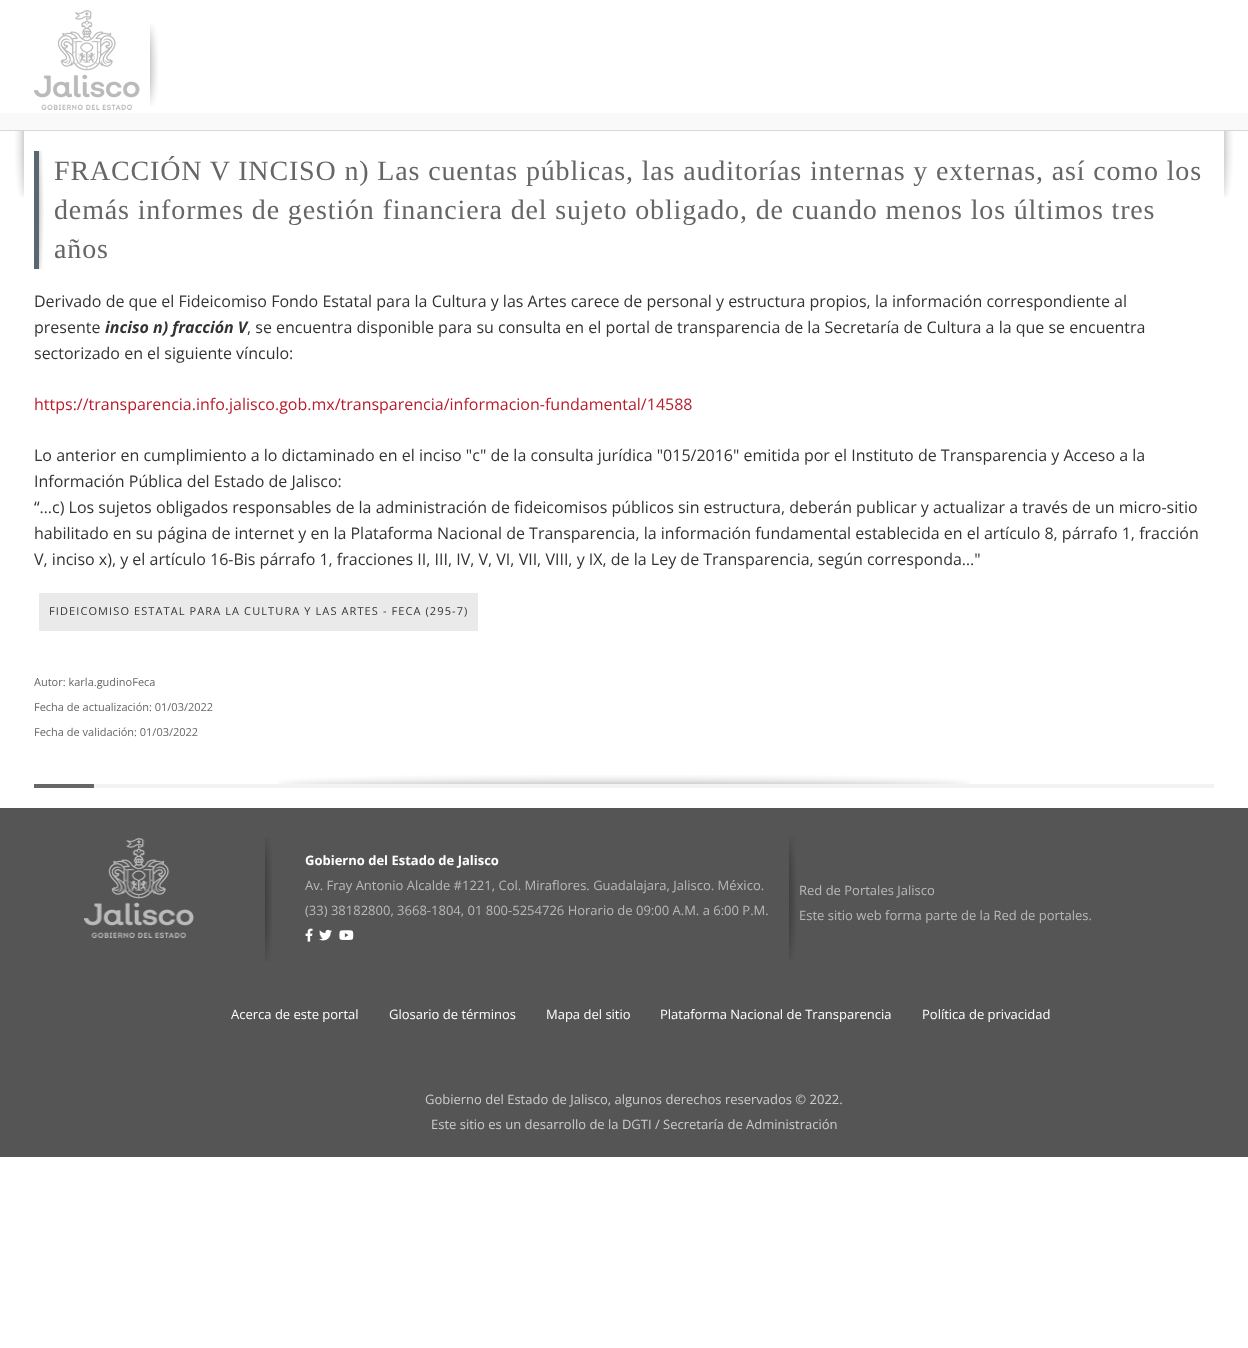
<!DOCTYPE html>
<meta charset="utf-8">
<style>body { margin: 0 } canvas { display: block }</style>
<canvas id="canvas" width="1248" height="1348"></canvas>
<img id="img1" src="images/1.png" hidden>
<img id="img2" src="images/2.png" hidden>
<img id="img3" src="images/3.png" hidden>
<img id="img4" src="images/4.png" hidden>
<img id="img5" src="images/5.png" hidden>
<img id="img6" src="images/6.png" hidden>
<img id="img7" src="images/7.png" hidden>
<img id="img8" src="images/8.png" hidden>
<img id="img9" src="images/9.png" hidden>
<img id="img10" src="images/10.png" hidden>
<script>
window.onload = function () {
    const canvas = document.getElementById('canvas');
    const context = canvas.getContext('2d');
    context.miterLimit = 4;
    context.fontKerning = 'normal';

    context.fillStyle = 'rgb(255, 255, 255)';
    context.fillRect(0, 0, 1248, 1348);
    context.drawImage(document.getElementById('img1'), 150, 24, 8, 82);
    context.drawImage(document.getElementById('img2'), 34, 10, 106, 100);
    context.fillStyle = 'rgb(249, 249, 249)';
    context.fillRect(0, 113, 1248, 17);
    context.fillStyle = 'rgb(215, 215, 215)';
    context.fillRect(0, 130, 1248, 1);
    context.drawImage(document.getElementById('img3'), 15, 131, 1218, 66);
    context.drawImage(document.getElementById('img4'), 39, 151, 5, 118);
    context.fillStyle = 'rgb(88, 103, 113)';
    context.fillRect(34, 151, 5, 118);
    context.fillStyle = 'rgb(234, 234, 234)';
    context.fillRect(39, 593, 439, 38);
    context.drawImage(document.getElementById('img5'), 278, 775, 692, 9);
    context.fillStyle = 'rgb(242, 242, 242)';
    context.fillRect(94, 784, 1120, 4);
    context.fillStyle = 'rgb(102, 102, 102)';
    context.fillRect(34, 784, 60, 4);
    context.fillStyle = 'rgb(85, 85, 85)';
    context.fillRect(0, 808, 1248, 349);
    context.drawImage(document.getElementById('img6'), 84, 838, 110, 100);
    context.drawImage(document.getElementById('img7'), 265, 837, 7, 124);
    context.drawImage(document.getElementById('img8'), 305, 928, 8, 14);
    context.drawImage(document.getElementById('img9'), 319, 929, 13, 12);
    context.drawImage(document.getElementById('img10'), 339, 930, 15, 10);
    context.drawImage(document.getElementById('img7'), 789, 837, 7, 124);
    context.letterSpacing = '0.85px';
    context.font = '28px Liberation Serif';
    context.fillStyle = 'rgb(102, 102, 102)';
    context.fillText('FRACCIÓN V INCISO n) Las cuentas públicas, las auditorías internas y externas, así como los', 54, 180);
    context.fillText('demás informes de gestión financiera del sujeto obligado, de cuando menos los últimos tres', 54, 219);
    context.fillText('años', 54, 258);
    context.letterSpacing = '0px';
    context.font = '16px Open Sans';
    context.fillStyle = 'rgb(51, 51, 51)';
    context.fillText('Derivado de que el Fideicomiso Fondo Estatal para la Cultura y las Artes carece de personal y estructura propios, la información correspondiente al', 34, 307);
    context.fillText('presente', 34, 333);
    context.font = 'italic bold 16px Open Sans';
    context.fillText('inciso n) fracción V', 105, 333);
    context.font = '16px Open Sans';
    context.fillText(', se encuentra disponible para su consulta en el portal de transparencia de la Secretaría de Cultura a la que se encuentra', 247, 333);
    context.fillText('sectorizado en el siguiente vínculo:', 34, 359);
    context.fillStyle = 'rgb(184, 29, 44)';
    context.fillText('https://transparencia.info.jalisco.gob.mx/transparencia/informacion-fundamental/14588', 34, 410);
    context.fillStyle = 'rgb(51, 51, 51)';
    context.fillText('Lo anterior en cumplimiento a lo dictaminado en el inciso "c" de la consulta jurídica "015/2016" emitida por el Instituto de Transparencia y Acceso a la', 34, 461);
    context.fillText('Información Pública del Estado de Jalisco:', 34, 487);
    context.fillText('“…c) Los sujetos obligados responsables de la administración de fideicomisos públicos sin estructura, deberán publicar y actualizar a través de un micro-sitio', 34, 513);
    context.fillText('habilitado en su página de internet y en la Plataforma Nacional de Transparencia, la información fundamental establecida en el artículo 8, párrafo 1, fracción', 34, 539);
    context.fillText('V, inciso x), y el artículo 16-Bis párrafo 1, fracciones II, III, IV, V, VI, VII, VIII, y IX, de la Ley de Transparencia, según corresponda…"', 34, 565);
    context.letterSpacing = '1.1px';
    context.font = '11px Open Sans';
    context.fillText('FIDEICOMISO ESTATAL PARA LA CULTURA Y LAS ARTES - FECA (295-7)', 49, 615);
    context.letterSpacing = '0px';
    context.fillStyle = 'rgb(102, 102, 102)';
    context.fillText('Autor: karla.gudinoFeca', 34, 686);
    context.fillText('Fecha de actualización: 01/03/2022', 34, 711);
    context.fillText('Fecha de validación: 01/03/2022', 34, 736);
    context.font = 'bold 13px Open Sans';
    context.fillStyle = 'rgb(255, 255, 255)';
    context.fillText('Gobierno del Estado de Jalisco', 305, 865);
    context.font = '13px Open Sans';
    context.fillStyle = 'rgb(185, 185, 185)';
    context.fillText('Av. Fray Antonio Alcalde #1221, Col. Miraflores. Guadalajara, Jalisco. México.', 305, 890);
    context.fillText('(33) 38182800, 3668-1804, 01 800-5254726 Horario de 09:00 A.M. a 6:00 P.M.', 305, 915);
    context.fillText('Red de Portales Jalisco', 799, 895);
    context.fillText('Este sitio web forma parte de la Red de portales.', 799, 920);
    context.fillStyle = 'rgb(255, 255, 255)';
    context.fillText('Acerca de este portal', 231, 1019);
    context.fillText('Glosario de términos', 389, 1019);
    context.fillText('Mapa del sitio', 546, 1019);
    context.fillText('Plataforma Nacional de Transparencia', 660, 1019);
    context.fillText('Política de privacidad', 922, 1019);
    context.fillStyle = 'rgb(204, 204, 204)';
    context.fillText('Gobierno del Estado de Jalisco, algunos derechos reservados © 2022.', 425, 1104);
    context.fillText('Este sitio es un desarrollo de la DGTI / Secretaría de Administración', 431, 1129);
};
</script>
